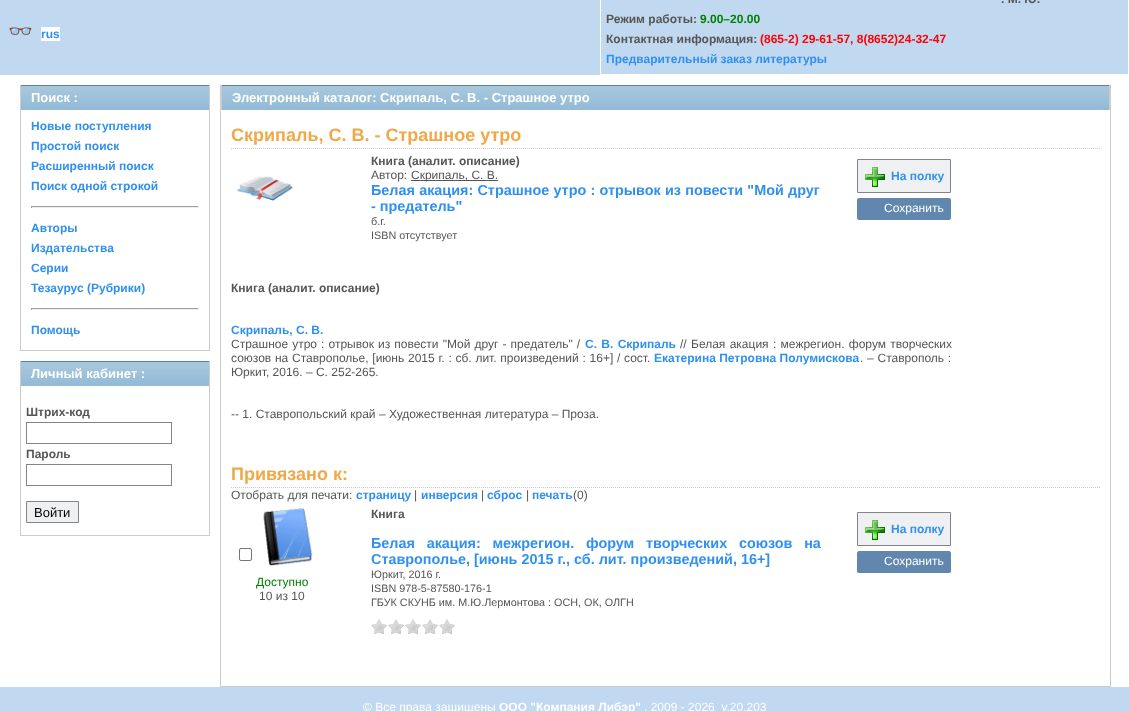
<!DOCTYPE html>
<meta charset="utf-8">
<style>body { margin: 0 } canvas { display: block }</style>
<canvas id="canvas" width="1129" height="711"></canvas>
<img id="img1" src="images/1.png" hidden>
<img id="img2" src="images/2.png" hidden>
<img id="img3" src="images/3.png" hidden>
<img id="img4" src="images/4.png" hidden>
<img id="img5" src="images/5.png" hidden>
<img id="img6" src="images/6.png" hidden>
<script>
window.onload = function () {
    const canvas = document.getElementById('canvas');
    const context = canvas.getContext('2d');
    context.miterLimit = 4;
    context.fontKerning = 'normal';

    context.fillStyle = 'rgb(255, 255, 255)';
    context.fillRect(0, 0, 1129, 711);
    context.fillStyle = 'rgb(192, 216, 240)';
    context.fillRect(0, 0, 1128, 75);
    context.fillStyle = 'rgb(255, 255, 255)';
    context.fillRect(41, 27, 19, 14);
    context.strokeStyle = 'rgb(255, 255, 255)';
    context.strokeRect(600.5, -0.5, 528, 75);
    context.drawImage(document.getElementById('img1'), 21, 85, 188, 25);
    context.fillStyle = 'rgb(204, 204, 204)';
    context.fillRect(209, 85, 1, 266);
    context.fillRect(20, 85, 1, 25);
    context.fillRect(20, 350, 190, 1);
    context.fillRect(20, 110, 1, 241);
    context.fillStyle = 'rgb(159, 159, 159)';
    context.fillRect(31, 206, 168, 1);
    context.fillStyle = 'rgb(238, 238, 238)';
    context.fillRect(198, 206, 1, 2);
    context.fillRect(31, 207, 168, 1);
    context.fillStyle = 'rgb(159, 159, 159)';
    context.fillRect(31, 206, 1, 2);
    context.fillRect(31, 308, 168, 1);
    context.fillStyle = 'rgb(238, 238, 238)';
    context.fillRect(198, 308, 1, 2);
    context.fillRect(31, 309, 168, 1);
    context.fillStyle = 'rgb(159, 159, 159)';
    context.fillRect(31, 308, 1, 2);
    context.drawImage(document.getElementById('img1'), 21, 361, 188, 25);
    context.fillStyle = 'rgb(204, 204, 204)';
    context.fillRect(209, 361, 1, 175);
    context.fillRect(20, 361, 1, 25);
    context.fillRect(20, 535, 190, 1);
    context.fillRect(20, 386, 1, 150);
    context.strokeStyle = 'rgb(132, 131, 136)';
    context.strokeRect(26.5, 422.5, 145, 21);
    context.strokeRect(26.5, 464.5, 145, 21);
    context.fillStyle = 'rgb(238, 240, 241)';
    context.beginPath();
    context.rect(26.5, 501.5, 52, 21);
    context.fill();
    context.stroke();
    context.fillStyle = 'rgb(204, 204, 204)';
    context.fillRect(1110, 85, 1, 602);
    context.fillRect(220, 686, 891, 1);
    context.fillRect(220, 85, 1, 602);
    context.drawImage(document.getElementById('img2'), 222, 85, 887, 25);
    context.fillRect(1109, 85, 1, 25);
    context.fillRect(221, 85, 1, 25);
    context.beginPath();
    context.moveTo(231, 148.5);
    context.lineTo(1100, 148.5);
    context.strokeStyle = 'rgb(204, 204, 204)';
    context.setLineDash([1, 1]);
    context.stroke();
    context.drawImage(document.getElementById('img3'), 237, 176, 56, 25);
    context.fillStyle = 'rgb(85, 85, 85)';
    context.fillRect(411, 180, 87, 1);
    context.fillStyle = 'rgb(238, 240, 241)';
    context.beginPath();
    context.rect(857.5, 159.5, 93, 33);
    context.fill();
    context.strokeStyle = 'rgb(132, 131, 136)';
    context.setLineDash([]);
    context.stroke();
    context.drawImage(document.getElementById('img4'), 865, 167, 20, 20);
    context.fillStyle = 'rgb(98, 135, 174)';
    context.beginPath();
    context.roundRect(857, 198, 27, 22, [2, 0, 0, 2]);
    context.fill();
    context.beginPath();
    context.roundRect(884, 198, 67, 22, [0, 2, 2, 0]);
    context.fill();
    context.beginPath();
    context.moveTo(231, 487.5);
    context.lineTo(1100, 487.5);
    context.strokeStyle = 'rgb(204, 204, 204)';
    context.setLineDash([1, 1]);
    context.stroke();
    context.drawImage(document.getElementById('img5'), 371, 619, 16, 15);
    context.drawImage(document.getElementById('img5'), 388, 619, 16, 15);
    context.drawImage(document.getElementById('img5'), 405, 619, 16, 15);
    context.drawImage(document.getElementById('img5'), 422, 619, 16, 15);
    context.drawImage(document.getElementById('img5'), 439, 619, 16, 15);
    context.fillStyle = 'rgb(238, 240, 241)';
    context.beginPath();
    context.rect(857.5, 512.5, 93, 33);
    context.fill();
    context.strokeStyle = 'rgb(132, 131, 136)';
    context.setLineDash([]);
    context.stroke();
    context.drawImage(document.getElementById('img4'), 865, 520, 20, 20);
    context.fillStyle = 'rgb(98, 135, 174)';
    context.beginPath();
    context.roundRect(857, 551, 27, 22, [2, 0, 0, 2]);
    context.fill();
    context.beginPath();
    context.roundRect(884, 551, 67, 22, [0, 2, 2, 0]);
    context.fill();
    context.beginPath();
    context.roundRect(239.5, 548.5, 12, 12, 1.5);
    context.strokeStyle = 'rgb(118, 118, 118)';
    context.stroke();
    context.drawImage(document.getElementById('img6'), 263, 508, 50, 58);
    context.fillStyle = 'rgb(192, 216, 240)';
    context.fillRect(0, 687, 1129, 24);
    context.font = 'bold 20px Noto Color Emoji';
    context.fillStyle = 'rgb(48, 144, 240)';
    context.fillText('👓', 8, 38);
    context.font = 'bold 12px Liberation Sans';
    context.fillText('rus', 41, 38);
    context.fillStyle = 'rgb(85, 85, 85)';
    context.fillText('. М. Ю.', 1001, 3);
    context.fillText('Режим работы:', 606, 23);
    context.fillStyle = 'rgb(0, 128, 0)';
    context.fillText('9.00–20.00', 700, 23);
    context.fillStyle = 'rgb(85, 85, 85)';
    context.fillText('Контактная информация:', 606, 43);
    context.fillStyle = 'rgb(255, 0, 0)';
    context.fillText('(865-2) 29-61-57, 8(8652)24-32-47', 760, 43);
    context.fillStyle = 'rgb(48, 144, 240)';
    context.fillText('Предварительный заказ литературы', 606, 63);
    context.font = 'bold 13px Liberation Sans';
    context.fillStyle = 'rgb(255, 255, 255)';
    context.fillText('Поиск :', 31, 102);
    context.font = 'bold 12px Liberation Sans';
    context.fillStyle = 'rgb(48, 144, 240)';
    context.fillText('Новые поступления', 31, 130);
    context.fillText('Простой поиск', 31, 150);
    context.fillText('Расширенный поиск', 31, 170);
    context.fillText('Поиск одной строкой', 31, 190);
    context.fillText('Авторы', 31, 232);
    context.fillText('Издательства', 31, 252);
    context.fillText('Серии', 31, 272);
    context.fillText('Тезаурус (Рубрики)', 31, 292);
    context.fillText('Помощь', 31, 334);
    context.font = 'bold 13px Liberation Sans';
    context.fillStyle = 'rgb(255, 255, 255)';
    context.fillText('Личный кабинет :', 31, 378);
    context.font = 'bold 12px Liberation Sans';
    context.fillStyle = 'rgb(85, 85, 85)';
    context.fillText('Штрих-код', 26, 416);
    context.fillText('Пароль', 26, 458);
    context.font = '13px Liberation Sans';
    context.fillStyle = 'rgb(0, 0, 0)';
    context.fillText('Войти', 34, 517);
    context.font = 'bold 13px Liberation Sans';
    context.fillStyle = 'rgb(255, 255, 255)';
    context.fillText('Электронный каталог: Скрипаль, С. В. - Страшное утро', 232, 102);
    context.font = 'bold 18px Liberation Sans';
    context.fillStyle = 'rgb(240, 168, 72)';
    context.fillText('Скрипаль, С. В. - Страшное утро', 231, 141);
    context.font = 'bold 12px Liberation Sans';
    context.fillStyle = 'rgb(85, 85, 85)';
    context.fillText('Книга (аналит. описание)', 371, 165);
    context.font = '12px Liberation Sans';
    context.fillText('Автор:', 371, 179);
    context.fillText('Скрипаль, С. В.', 411, 179);
    context.wordSpacing = '0.25px';
    context.font = 'bold 14.4px Liberation Sans';
    context.fillStyle = 'rgb(48, 144, 240)';
    context.fillText('Белая акация: Страшное утро : отрывок из повести "Мой друг', 371, 195);
    context.wordSpacing = '0px';
    context.fillText('- предатель"', 371, 211);
    context.font = '10.8px Liberation Sans';
    context.fillStyle = 'rgb(85, 85, 85)';
    context.fillText('б.г.', 371, 225);
    context.fillText('ISBN отсутствует', 371, 239);
    context.font = 'bold 12px Liberation Sans';
    context.fillStyle = 'rgb(48, 144, 240)';
    context.fillText('На полку', 891, 180);
    context.font = '12px Liberation Sans';
    context.fillStyle = 'rgb(255, 255, 255)';
    context.fillText('Сохранить', 884, 212);
    context.font = 'bold 12px Liberation Sans';
    context.fillStyle = 'rgb(85, 85, 85)';
    context.fillText('Книга (аналит. описание)', 231, 292);
    context.fillStyle = 'rgb(48, 144, 240)';
    context.fillText('Скрипаль, С. В.', 231, 334);
    context.wordSpacing = '0.75px';
    context.font = '12px Liberation Sans';
    context.fillStyle = 'rgb(85, 85, 85)';
    context.fillText('Страшное утро : отрывок из повести "Мой друг - предатель" /', 231, 348);
    context.wordSpacing = '1px';
    context.font = 'bold 12px Liberation Sans';
    context.fillStyle = 'rgb(48, 144, 240)';
    context.fillText('С. В. Скрипаль', 585, 348);
    context.wordSpacing = '0px';
    context.font = '12px Liberation Sans';
    context.fillStyle = 'rgb(85, 85, 85)';
    context.fillText('//', 680, 348);
    context.wordSpacing = '1px';
    context.fillText('Белая акация : межрегион. форум творческих', 691, 348);
    context.wordSpacing = '0.4px';
    context.fillText('союзов на Ставрополье, [июнь 2015 г. : сб. лит. произведений : 16+] / сост.', 231, 362);
    context.wordSpacing = '0px';
    context.font = 'bold 12px Liberation Sans';
    context.fillStyle = 'rgb(48, 144, 240)';
    context.fillText('Екатерина Петровна Полумискова', 654, 362);
    context.wordSpacing = '0.4px';
    context.font = '12px Liberation Sans';
    context.fillStyle = 'rgb(85, 85, 85)';
    context.fillText('. – Ставрополь :', 860, 362);
    context.wordSpacing = '0px';
    context.fillText('Юркит, 2016. – С. 252-265.', 231, 376);
    context.fillText('-- 1. Ставропольский край – Художественная литература – Проза.', 231, 418);
    context.font = 'bold 18px Liberation Sans';
    context.fillStyle = 'rgb(240, 168, 72)';
    context.fillText('Привязано к:', 231, 480);
    context.font = '12px Liberation Sans';
    context.fillStyle = 'rgb(85, 85, 85)';
    context.fillText('Отобрать для печати:', 231, 499);
    context.font = 'bold 12px Liberation Sans';
    context.fillStyle = 'rgb(48, 144, 240)';
    context.fillText('страницу', 356, 499);
    context.font = '12px Liberation Sans';
    context.fillStyle = 'rgb(85, 85, 85)';
    context.fillText('|', 414, 499);
    context.font = 'bold 12px Liberation Sans';
    context.fillStyle = 'rgb(48, 144, 240)';
    context.fillText('инверсия', 421, 499);
    context.font = '12px Liberation Sans';
    context.fillStyle = 'rgb(85, 85, 85)';
    context.fillText('|', 481, 499);
    context.font = 'bold 12px Liberation Sans';
    context.fillStyle = 'rgb(48, 144, 240)';
    context.fillText('сброс', 487, 499);
    context.font = '12px Liberation Sans';
    context.fillStyle = 'rgb(85, 85, 85)';
    context.fillText('|', 526, 499);
    context.font = 'bold 12px Liberation Sans';
    context.fillStyle = 'rgb(48, 144, 240)';
    context.fillText('печать', 532, 499);
    context.font = '12px Liberation Sans';
    context.fillStyle = 'rgb(85, 85, 85)';
    context.fillText('(0)', 573, 499);
    context.font = 'bold 12px Liberation Sans';
    context.fillText('Книга', 371, 518);
    context.wordSpacing = '7.75px';
    context.font = 'bold 14.4px Liberation Sans';
    context.fillStyle = 'rgb(48, 144, 240)';
    context.fillText('Белая акация: межрегион. форум творческих союзов на', 371, 548);
    context.wordSpacing = '0px';
    context.fillText('Ставрополье, [июнь 2015 г., сб. лит. произведений, 16+]', 371, 564);
    context.font = '10.8px Liberation Sans';
    context.fillStyle = 'rgb(85, 85, 85)';
    context.fillText('Юркит, 2016 г.', 371, 578);
    context.fillText('ISBN 978-5-87580-176-1', 371, 592);
    context.fillText('ГБУК СКУНБ им. М.Ю.Лермонтова : ОСН, ОК, ОЛГН', 371, 606);
    context.font = 'bold 12px Liberation Sans';
    context.fillStyle = 'rgb(48, 144, 240)';
    context.fillText('На полку', 891, 533);
    context.font = '12px Liberation Sans';
    context.fillStyle = 'rgb(255, 255, 255)';
    context.fillText('Сохранить', 884, 565);
    context.fillStyle = 'rgb(0, 128, 0)';
    context.fillText('Доступно', 256, 586);
    context.fillStyle = 'rgb(85, 85, 85)';
    context.fillText('10 из 10', 259, 600);
    context.fillStyle = 'rgb(255, 255, 255)';
    context.fillText('© Все права защищены', 363, 711);
    context.font = 'bold 12px Liberation Sans';
    context.fillText('ООО "Компания Либэр"', 499, 711);
    context.font = '12px Liberation Sans';
    context.fillText(', 2009 - 2026  v.20.203', 644, 711);
};
</script>
